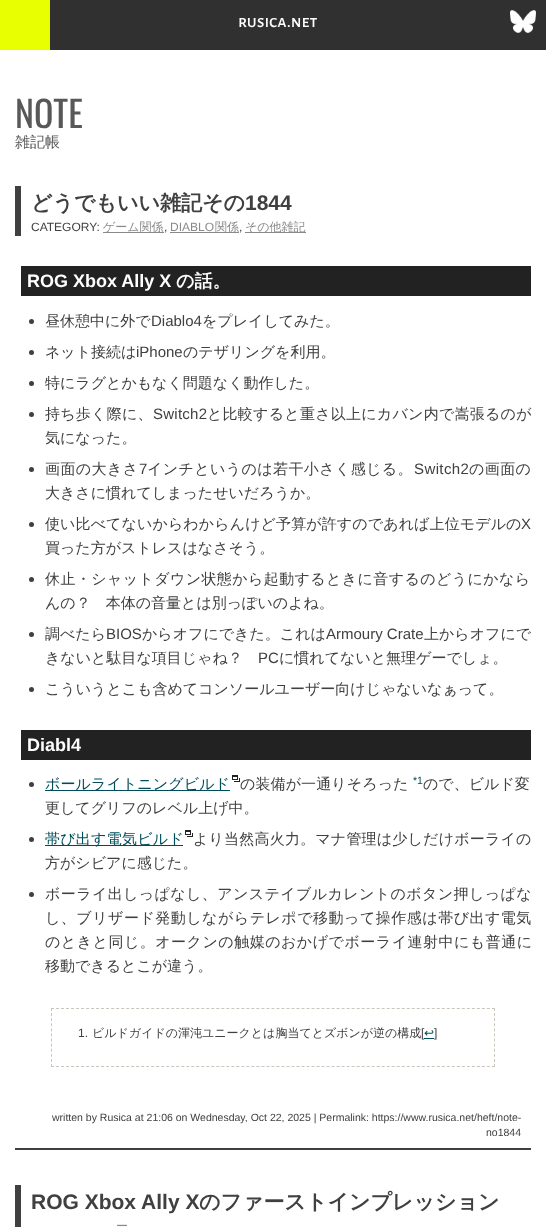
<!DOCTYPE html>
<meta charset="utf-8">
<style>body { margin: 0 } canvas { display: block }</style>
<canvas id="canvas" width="546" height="1227"></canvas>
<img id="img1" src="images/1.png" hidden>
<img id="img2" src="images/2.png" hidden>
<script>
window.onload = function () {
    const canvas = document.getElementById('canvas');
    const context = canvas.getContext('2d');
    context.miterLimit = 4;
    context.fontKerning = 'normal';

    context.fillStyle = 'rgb(255, 255, 255)';
    context.fillRect(0, 0, 546, 1227);
    context.fillStyle = 'rgb(231, 255, 0)';
    context.fillRect(0, 0, 50, 50);
    context.fillStyle = 'rgb(48, 48, 48)';
    context.fillRect(50, 0, 496, 50);
    context.drawImage(document.getElementById('img1'), 510, 10, 26, 23);
    context.fillStyle = 'rgb(64, 64, 64)';
    context.fillRect(15, 186, 6, 50);
    context.fillStyle = 'rgb(138, 138, 138)';
    context.fillRect(103, 232, 61, 1);
    context.fillRect(170, 232, 69, 1);
    context.fillRect(245, 232, 61, 1);
    context.fillStyle = 'rgb(34, 34, 34)';
    context.fillRect(21, 266, 510, 30);
    context.fillStyle = 'rgb(64, 64, 64)';
    context.beginPath();
    context.arc(31.5, 321.5, 2.5, 0, 2 * Math.PI);
    context.fill();
    context.beginPath();
    context.arc(31.5, 352.5, 2.5, 0, 2 * Math.PI);
    context.fill();
    context.beginPath();
    context.arc(31.5, 383.5, 2.5, 0, 2 * Math.PI);
    context.fill();
    context.beginPath();
    context.arc(31.5, 414.5, 2.5, 0, 2 * Math.PI);
    context.fill();
    context.beginPath();
    context.arc(31.5, 469.5, 2.5, 0, 2 * Math.PI);
    context.fill();
    context.beginPath();
    context.arc(31.5, 524.5, 2.5, 0, 2 * Math.PI);
    context.fill();
    context.beginPath();
    context.arc(31.5, 579.5, 2.5, 0, 2 * Math.PI);
    context.fill();
    context.beginPath();
    context.arc(31.5, 634.5, 2.5, 0, 2 * Math.PI);
    context.fill();
    context.beginPath();
    context.arc(31.5, 689.5, 2.5, 0, 2 * Math.PI);
    context.fill();
    context.fillStyle = 'rgb(34, 34, 34)';
    context.fillRect(21, 730, 510, 30);
    context.fillStyle = 'rgb(64, 64, 64)';
    context.beginPath();
    context.arc(31.5, 784.5, 2.5, 0, 2 * Math.PI);
    context.fill();
    context.fillStyle = 'rgb(0, 77, 90)';
    context.fillRect(45, 790, 185, 1);
    context.drawImage(document.getElementById('img2'), 232, 775, 8, 7);
    context.fillStyle = 'rgb(64, 64, 64)';
    context.beginPath();
    context.arc(31.5, 839.5, 2.5, 0, 2 * Math.PI);
    context.fill();
    context.fillStyle = 'rgb(0, 77, 90)';
    context.fillRect(45, 845, 138, 1);
    context.drawImage(document.getElementById('img2'), 185, 830, 8, 7);
    context.fillStyle = 'rgb(64, 64, 64)';
    context.beginPath();
    context.arc(31.5, 894.5, 2.5, 0, 2 * Math.PI);
    context.fill();
    context.beginPath();
    context.moveTo(51, 1008.5);
    context.lineTo(495, 1008.5);
    context.strokeStyle = 'rgb(203, 198, 189)';
    context.setLineDash([3, 2.01]);
    context.stroke();
    context.beginPath();
    context.moveTo(494.5, 1008);
    context.lineTo(494.5, 1067);
    context.setLineDash([3, 2.09]);
    context.stroke();
    context.beginPath();
    context.moveTo(51, 1066.5);
    context.lineTo(495, 1066.5);
    context.setLineDash([3, 2.01]);
    context.stroke();
    context.beginPath();
    context.moveTo(51.5, 1008);
    context.lineTo(51.5, 1067);
    context.setLineDash([3, 2.09]);
    context.stroke();
    context.fillRect(15, 1148, 516, 2);
    context.fillRect(15, 1185, 6, 42);
    context.font = '500 18px Alegreya Sans SC';
    context.fillStyle = 'rgb(254, 254, 254)';
    context.fillText('rusica.net', 238, 27);
    context.font = '36px Oswald';
    context.fillStyle = 'rgb(88, 88, 88)';
    context.fillText('NOTE', 15, 128);
    context.font = '500 15px WenQuanYi Zen Hei';
    context.fillText('雑記帳', 15, 147);
    context.font = 'bold 21px WenQuanYi Zen Hei';
    context.fillStyle = 'rgb(64, 64, 64)';
    context.fillText('どうでもいい雑記その', 31, 210);
    context.font = 'bold 21px Liberation Sans';
    context.fillText('1844', 245, 210);
    context.font = '12px Liberation Sans';
    context.fillText('CATEGORY:', 31, 231);
    context.font = '500 12px WenQuanYi Zen Hei';
    context.fillStyle = 'rgb(138, 138, 138)';
    context.fillText('ゲーム関係', 103, 231);
    context.font = '12px Liberation Sans';
    context.fillStyle = 'rgb(64, 64, 64)';
    context.fillText(',', 164, 231);
    context.fillStyle = 'rgb(138, 138, 138)';
    context.fillText('DIABLO', 170, 231);
    context.font = '500 12px WenQuanYi Zen Hei';
    context.fillText('関係', 215, 231);
    context.font = '12px Liberation Sans';
    context.fillStyle = 'rgb(64, 64, 64)';
    context.fillText(',', 239, 231);
    context.font = '500 12px WenQuanYi Zen Hei';
    context.fillStyle = 'rgb(138, 138, 138)';
    context.fillText('その他雑記', 245, 231);
    context.font = 'bold 18px Liberation Sans';
    context.fillStyle = 'rgb(254, 254, 254)';
    context.fillText('ROG Xbox Ally X', 27, 287);
    context.font = 'bold 18px WenQuanYi Zen Hei';
    context.fillText('の話。', 176, 287);
    context.font = '500 15px WenQuanYi Zen Hei';
    context.fillStyle = 'rgb(64, 64, 64)';
    context.fillText('昼休憩中に外で', 45, 326);
    context.font = '15px Liberation Sans';
    context.fillText('Diablo4', 151, 326);
    context.font = '500 15px WenQuanYi Zen Hei';
    context.fillText('をプレイしてみた。', 202, 326);
    context.fillText('ネット接続は', 45, 357);
    context.font = '15px Liberation Sans';
    context.fillText('iPhone', 136, 357);
    context.font = '500 15px WenQuanYi Zen Hei';
    context.fillText('のテザリングを利用。', 183, 357);
    context.fillText('特にラグとかもなく問題なく動作した。', 45, 388);
    context.letterSpacing = '0.25px';
    context.fillText('持ち歩く際に、', 45, 419);
    context.font = '15px Liberation Sans';
    context.fillText('Switch2', 153, 419);
    context.font = '500 15px WenQuanYi Zen Hei';
    context.fillText('と比較すると重さ以上にカバン内で嵩張るのが', 207, 419);
    context.letterSpacing = '0px';
    context.fillText('気になった。', 45, 443);
    context.letterSpacing = '0.4px';
    context.fillText('画面の大きさ', 45, 474);
    context.font = '15px Liberation Sans';
    context.fillText('7', 139, 474);
    context.font = '500 15px WenQuanYi Zen Hei';
    context.fillText('インチというのは若干小さく感じる。', 147, 474);
    context.font = '15px Liberation Sans';
    context.fillText('Switch2', 414, 474);
    context.font = '500 15px WenQuanYi Zen Hei';
    context.fillText('の画面の', 469, 474);
    context.letterSpacing = '0px';
    context.fillText('大きさに慣れてしまったせいだろうか。', 45, 498);
    context.letterSpacing = '0.1px';
    context.fillText('使い比べてないからわからんけど予算が許すのであれば上位モデルの', 45, 529);
    context.font = '15px Liberation Sans';
    context.fillText('X', 521, 529);
    context.letterSpacing = '0px';
    context.font = '500 15px WenQuanYi Zen Hei';
    context.fillText('買った方がストレスはなさそう。', 45, 553);
    context.letterSpacing = '0.4px';
    context.fillText('休止・シャットダウン状態から起動するときに音するのどうにかなら', 45, 584);
    context.letterSpacing = '0px';
    context.fillText('んの？　本体の音量とは別っぽいのよね。', 45, 608);
    context.fillText('調べたら', 45, 639);
    context.font = '15px Liberation Sans';
    context.fillText('BIOS', 106, 639);
    context.font = '500 15px WenQuanYi Zen Hei';
    context.fillText('からオフにできた。これは', 142, 639);
    context.font = '15px Liberation Sans';
    context.fillText('Armoury Crate', 326, 639);
    context.font = '500 15px WenQuanYi Zen Hei';
    context.fillText('上からオフにで', 424, 639);
    context.fillText('きないと駄目な項目じゃね？', 45, 663);
    context.font = '15px Liberation Sans';
    context.fillText('PC', 258, 663);
    context.font = '500 15px WenQuanYi Zen Hei';
    context.fillText('に慣れてないと無理ゲーでしょ。', 279, 663);
    context.fillText('こういうとこも含めてコンソールユーザー向けじゃないなぁって。', 45, 694);
    context.font = 'bold 18px Liberation Sans';
    context.fillStyle = 'rgb(254, 254, 254)';
    context.fillText('Diabl4', 27, 751);
    context.letterSpacing = '0.1px';
    context.font = '500 15px WenQuanYi Zen Hei';
    context.fillStyle = 'rgb(0, 77, 90)';
    context.fillText('ボールライトニングビルド', 45, 789);
    context.fillStyle = 'rgb(64, 64, 64)';
    context.fillText('の装備が一通りそろった', 240, 789);
    context.letterSpacing = '0px';
    context.font = '10.5px Liberation Sans';
    context.fillStyle = 'rgb(0, 77, 90)';
    context.fillText('*1', 413, 784);
    context.font = '500 15px WenQuanYi Zen Hei';
    context.fillStyle = 'rgb(64, 64, 64)';
    context.fillText('ので、ビルド変', 423, 789);
    context.fillText('更してグリフのレベル上げ中。', 45, 813);
    context.letterSpacing = '0.25px';
    context.fillStyle = 'rgb(0, 77, 90)';
    context.fillText('帯び出す電気ビルド', 45, 844);
    context.letterSpacing = '0.2px';
    context.fillStyle = 'rgb(64, 64, 64)';
    context.fillText('より当然高火力。マナ管理は少しだけボーライの', 193, 844);
    context.letterSpacing = '0px';
    context.fillText('方がシビアに感じた。', 45, 868);
    context.letterSpacing = '0.4px';
    context.fillText('ボーライ出しっぱなし、アンステイブルカレントのボタン押しっぱな', 45, 899);
    context.letterSpacing = '0.5px';
    context.fillText('し、ブリザード発動しながらテレポで移動って操作感は帯び出す電気', 45, 923);
    context.fillText('のときと同じ。オークンの触媒のおかげでボーライ連射中にも普通に', 45, 947);
    context.letterSpacing = '0px';
    context.fillText('移動できるとこが違う。', 45, 971);
    context.font = '12px Liberation Sans';
    context.fillText('1.', 78, 1037);
    context.font = '500 12px WenQuanYi Zen Hei';
    context.fillText('ビルドガイドの渾沌ユニークとは胸当てとズボンが逆の構成', 92, 1037);
    context.font = '12px Liberation Sans';
    context.fillText('[', 421, 1037);
    context.fillStyle = 'rgb(0, 77, 90)';
    context.fillRect(424, 1038, 10, 1);
    context.font = '12px DejaVu Sans';
    context.fillText('↩', 424, 1037);
    context.font = '12px Liberation Sans';
    context.fillStyle = 'rgb(64, 64, 64)';
    context.fillText(']', 434, 1037);
    context.font = '10.5px Liberation Sans';
    context.fillText('written by Rusica at 21:06 on Wednesday, Oct 22, 2025 | Permalink: https://www.rusica.net/heft/note-', 52, 1121);
    context.fillText('no1844', 486, 1136);
    context.font = 'bold 21px Liberation Sans';
    context.fillText('ROG Xbox Ally X', 31, 1209);
    context.font = 'bold 21px WenQuanYi Zen Hei';
    context.fillText('のファーストインプレッション', 199, 1209);
    context.font = '500 12px WenQuanYi Zen Hei';
    context.fillStyle = 'rgb(138, 138, 138)';
    context.fillText('ー', 116, 1230);
};
</script>
